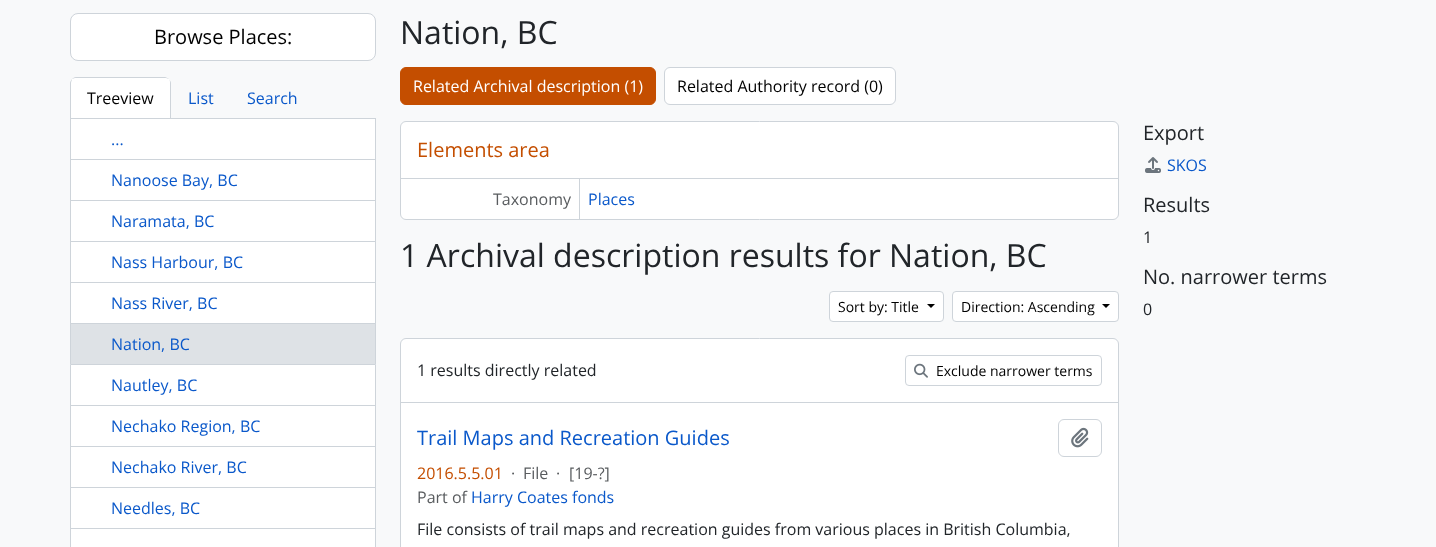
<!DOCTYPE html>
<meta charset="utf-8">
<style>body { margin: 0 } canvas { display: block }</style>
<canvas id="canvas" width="1436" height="547"></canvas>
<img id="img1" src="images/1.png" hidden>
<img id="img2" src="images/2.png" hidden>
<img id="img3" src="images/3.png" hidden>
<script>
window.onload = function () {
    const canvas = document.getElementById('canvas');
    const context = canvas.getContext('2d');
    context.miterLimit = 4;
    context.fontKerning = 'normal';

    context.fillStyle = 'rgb(248, 249, 250)';
    context.fillRect(0, 0, 1436, 547);
    context.fillStyle = 'rgb(255, 255, 255)';
    context.beginPath();
    context.roundRect(70.5, 13.5, 305, 47, 7.5);
    context.fill();
    context.strokeStyle = 'rgb(206, 212, 218)';
    context.stroke();
    context.beginPath();
    context.roundRect(70, 77, 101, 42, [6, 6, 0, 0]);
    context.fill();
    context.fillStyle = 'rgb(206, 212, 218)';
    context.beginPath();
    context.moveTo(76, 77);
    context.bezierCurveTo(74, 77, 73, 78, 72, 79);
    context.lineTo(75, 78);
    context.lineTo(166, 78);
    context.lineTo(169, 79);
    context.bezierCurveTo(168, 78, 166, 77, 165, 77);
    context.closePath();
    context.fill();
    context.beginPath();
    context.moveTo(171, 119);
    context.lineTo(171, 83);
    context.bezierCurveTo(171, 82, 170, 80, 169, 79);
    context.bezierCurveTo(170, 80, 170, 82, 170, 83);
    context.lineTo(170, 118);
    context.closePath();
    context.fill();
    context.beginPath();
    context.moveTo(70, 119);
    context.lineTo(71, 118);
    context.lineTo(71, 83);
    context.bezierCurveTo(71, 82, 72, 80, 72, 79);
    context.bezierCurveTo(71, 80, 70, 82, 70, 83);
    context.closePath();
    context.fill();
    context.fillRect(70, 118, 306, 1);
    context.fillStyle = 'rgb(255, 255, 255)';
    context.fillRect(71, 119, 304, 40);
    context.fillStyle = 'rgb(206, 212, 218)';
    context.fillRect(375, 119, 1, 205);
    context.fillRect(70, 159, 306, 1);
    context.fillRect(70, 119, 1, 41);
    context.fillStyle = 'rgb(255, 255, 255)';
    context.fillRect(71, 160, 304, 40);
    context.fillStyle = 'rgb(206, 212, 218)';
    context.fillRect(70, 200, 306, 1);
    context.fillRect(70, 160, 1, 41);
    context.fillStyle = 'rgb(255, 255, 255)';
    context.fillRect(71, 201, 304, 40);
    context.fillStyle = 'rgb(206, 212, 218)';
    context.fillRect(70, 241, 306, 1);
    context.fillRect(70, 201, 1, 41);
    context.fillStyle = 'rgb(255, 255, 255)';
    context.fillRect(71, 242, 304, 40);
    context.fillStyle = 'rgb(206, 212, 218)';
    context.fillRect(70, 282, 306, 1);
    context.fillRect(70, 242, 1, 82);
    context.fillStyle = 'rgb(255, 255, 255)';
    context.fillRect(71, 283, 304, 40);
    context.fillStyle = 'rgb(222, 226, 230)';
    context.beginPath();
    context.rect(70.5, 323.5, 305, 41);
    context.fill();
    context.stroke();
    context.fillStyle = 'rgb(255, 255, 255)';
    context.fillRect(71, 365, 304, 40);
    context.fillStyle = 'rgb(206, 212, 218)';
    context.fillRect(375, 365, 1, 182);
    context.fillRect(70, 405, 306, 1);
    context.fillRect(70, 365, 1, 41);
    context.fillStyle = 'rgb(255, 255, 255)';
    context.fillRect(71, 406, 304, 40);
    context.fillStyle = 'rgb(206, 212, 218)';
    context.fillRect(70, 446, 306, 1);
    context.fillRect(70, 406, 1, 41);
    context.fillStyle = 'rgb(255, 255, 255)';
    context.fillRect(71, 447, 304, 40);
    context.fillStyle = 'rgb(206, 212, 218)';
    context.fillRect(70, 487, 306, 1);
    context.fillRect(70, 447, 1, 41);
    context.fillStyle = 'rgb(255, 255, 255)';
    context.fillRect(71, 488, 304, 40);
    context.fillStyle = 'rgb(206, 212, 218)';
    context.fillRect(70, 528, 306, 1);
    context.fillRect(70, 488, 1, 59);
    context.fillStyle = 'rgb(255, 255, 255)';
    context.fillRect(71, 529, 304, 18);
    context.fillStyle = 'rgb(196, 78, 0)';
    context.beginPath();
    context.roundRect(400.5, 67.5, 255, 37, 5.5);
    context.fill();
    context.strokeStyle = 'rgb(196, 78, 0)';
    context.stroke();
    context.fillStyle = 'rgb(255, 255, 255)';
    context.beginPath();
    context.roundRect(664.5, 67.5, 231, 37, 5.5);
    context.fill();
    context.strokeStyle = 'rgb(206, 212, 218)';
    context.stroke();
    context.beginPath();
    context.roundRect(400.5, 121.5, 718, 98, 5.5);
    context.fill();
    context.stroke();
    context.fillStyle = 'rgb(206, 212, 218)';
    context.fillRect(401, 178, 717, 1);
    context.fillRect(579, 179, 1, 40);
    context.fillStyle = 'rgb(255, 255, 255)';
    context.beginPath();
    context.roundRect(829.5, 291.5, 114, 30, 3.5);
    context.fill();
    context.stroke();
    context.fillStyle = 'rgb(0, 0, 0)';
    context.beginPath();
    context.moveTo(927, 304);
    context.lineTo(935, 304);
    context.lineTo(931, 308);
    context.closePath();
    context.fill();
    context.fillStyle = 'rgb(255, 255, 255)';
    context.beginPath();
    context.roundRect(952.5, 291.5, 166, 30, 3.5);
    context.fill();
    context.stroke();
    context.fillStyle = 'rgb(0, 0, 0)';
    context.beginPath();
    context.moveTo(1102, 304);
    context.lineTo(1110, 304);
    context.lineTo(1106, 308);
    context.closePath();
    context.fill();
    context.fillStyle = 'rgb(255, 255, 255)';
    context.beginPath();
    context.roundRect(400.5, 338.5, 718, 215, 5.5);
    context.fill();
    context.stroke();
    context.fillStyle = 'rgb(206, 212, 218)';
    context.fillRect(401, 402, 717, 1);
    context.beginPath();
    context.roundRect(905.5, 355.5, 196, 30, 3.5);
    context.stroke();
    context.drawImage(document.getElementById('img1'), 914, 363, 14, 15);
    context.beginPath();
    context.roundRect(1058.5, 419.5, 43, 37, 5.5);
    context.stroke();
    context.drawImage(document.getElementById('img2'), 1071, 427, 18, 21);
    context.drawImage(document.getElementById('img3'), 1145, 157, 16, 16);
    context.font = '20px Open Sans';
    context.fillStyle = 'rgb(0, 0, 0)';
    context.fillText('Browse Places:', 154, 44);
    context.font = '16px Open Sans';
    context.fillText('Treeview', 87, 104);
    context.fillStyle = 'rgb(10, 88, 202)';
    context.fillText('List', 188, 104);
    context.fillText('Search', 247, 104);
    context.fillText('...', 111, 145);
    context.fillText('Nanoose Bay, BC', 111, 186);
    context.fillText('Naramata, BC', 111, 227);
    context.fillText('Nass Harbour, BC', 111, 268);
    context.fillText('Nass River, BC', 111, 309);
    context.fillText('Nation, BC', 111, 350);
    context.fillText('Nautley, BC', 111, 391);
    context.fillText('Nechako Region, BC', 111, 432);
    context.fillText('Nechako River, BC', 111, 473);
    context.fillText('Needles, BC', 111, 514);
    context.font = '32px Open Sans';
    context.fillStyle = 'rgb(33, 37, 41)';
    context.fillText('Nation, BC', 400, 44);
    context.font = '16px Open Sans';
    context.fillStyle = 'rgb(255, 255, 255)';
    context.fillText('Related Archival description (1)', 413, 92);
    context.fillStyle = 'rgb(0, 0, 0)';
    context.fillText('Related Authority record (0)', 677, 92);
    context.font = '20px Open Sans';
    context.fillStyle = 'rgb(196, 78, 0)';
    context.fillText('Elements area', 417, 157);
    context.font = '16px Open Sans';
    context.fillStyle = 'rgb(89, 92, 95)';
    context.fillText('Taxonomy', 493, 205);
    context.fillStyle = 'rgb(10, 88, 202)';
    context.fillText('Places', 588, 205);
    context.font = '32px Open Sans';
    context.fillStyle = 'rgb(33, 37, 41)';
    context.fillText('1 Archival description results for Nation, BC', 400, 267);
    context.font = '14px Open Sans';
    context.fillStyle = 'rgb(0, 0, 0)';
    context.fillText('Sort by: Title', 838, 312);
    context.fillText('Direction: Ascending', 961, 312);
    context.font = '16px Open Sans';
    context.fillStyle = 'rgb(33, 37, 41)';
    context.fillText('1 results directly related', 417, 376);
    context.font = '14px Open Sans';
    context.fillStyle = 'rgb(0, 0, 0)';
    context.fillText('Exclude narrower terms', 936, 376);
    context.font = '20px Open Sans';
    context.fillStyle = 'rgb(10, 88, 202)';
    context.fillText('Trail Maps and Recreation Guides', 417, 445);
    context.font = '16px Open Sans';
    context.fillStyle = 'rgb(196, 78, 0)';
    context.fillText('2016.5.5.01', 417, 479);
    context.fillStyle = 'rgb(89, 92, 95)';
    context.fillText('·', 511, 479);
    context.fillText('File', 523, 479);
    context.fillText('·', 556, 479);
    context.fillText('[19-?]', 569, 479);
    context.fillText('Part of', 417, 503);
    context.fillStyle = 'rgb(10, 88, 202)';
    context.fillText('Harry Coates fonds', 471, 503);
    context.fillStyle = 'rgb(33, 37, 41)';
    context.fillText('File consists of trail maps and recreation guides from various places in British Columbia,', 417, 535);
    context.font = '20px Open Sans';
    context.fillText('Export', 1143, 140);
    context.font = '16px Open Sans';
    context.fillStyle = 'rgb(10, 88, 202)';
    context.fillText('SKOS', 1167, 171);
    context.font = '20px Open Sans';
    context.fillStyle = 'rgb(33, 37, 41)';
    context.fillText('Results', 1143, 212);
    context.font = '16px Open Sans';
    context.fillText('1', 1143, 243);
    context.font = '20px Open Sans';
    context.fillText('No. narrower terms', 1143, 284);
    context.font = '16px Open Sans';
    context.fillText('0', 1143, 315);
};
</script>
